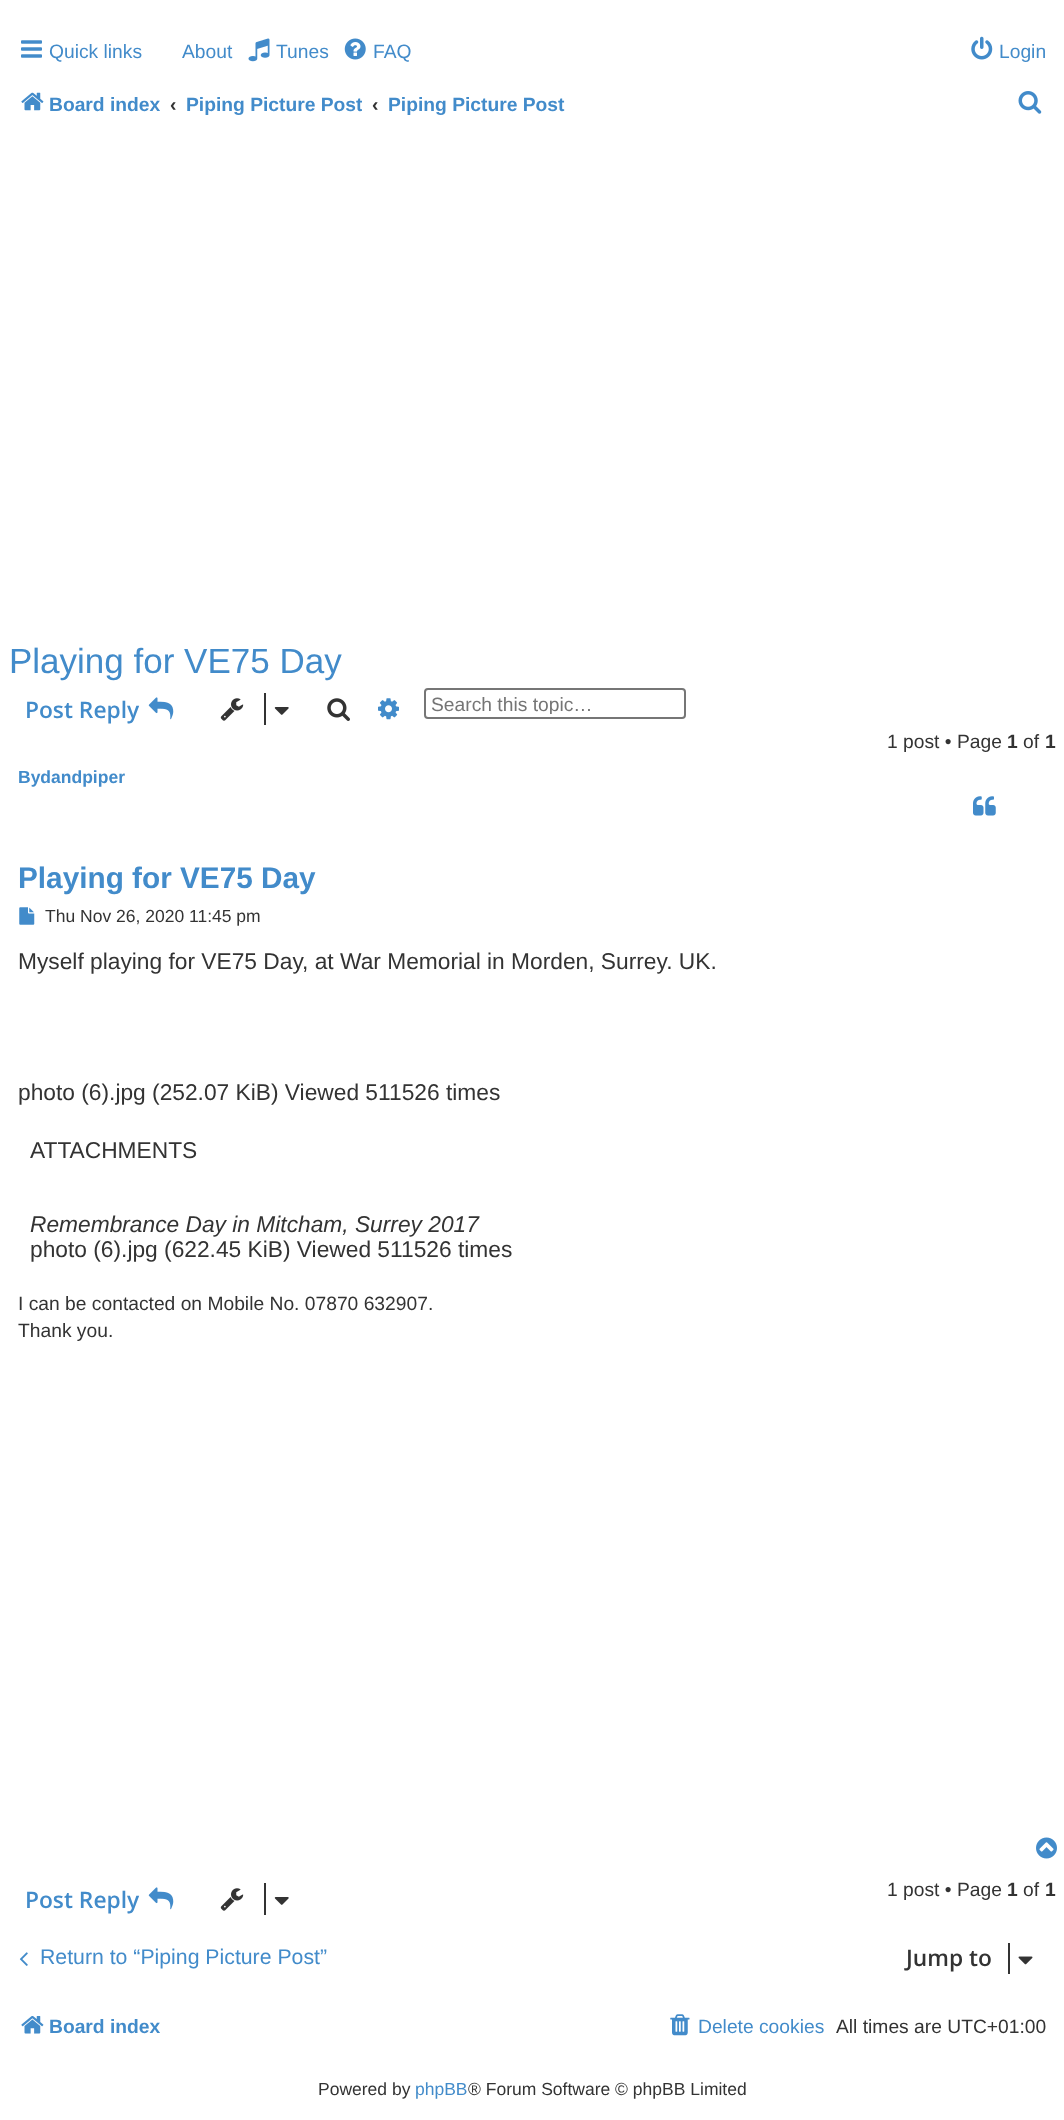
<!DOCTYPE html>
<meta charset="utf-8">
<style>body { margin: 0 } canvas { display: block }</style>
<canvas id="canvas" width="1064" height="2120"></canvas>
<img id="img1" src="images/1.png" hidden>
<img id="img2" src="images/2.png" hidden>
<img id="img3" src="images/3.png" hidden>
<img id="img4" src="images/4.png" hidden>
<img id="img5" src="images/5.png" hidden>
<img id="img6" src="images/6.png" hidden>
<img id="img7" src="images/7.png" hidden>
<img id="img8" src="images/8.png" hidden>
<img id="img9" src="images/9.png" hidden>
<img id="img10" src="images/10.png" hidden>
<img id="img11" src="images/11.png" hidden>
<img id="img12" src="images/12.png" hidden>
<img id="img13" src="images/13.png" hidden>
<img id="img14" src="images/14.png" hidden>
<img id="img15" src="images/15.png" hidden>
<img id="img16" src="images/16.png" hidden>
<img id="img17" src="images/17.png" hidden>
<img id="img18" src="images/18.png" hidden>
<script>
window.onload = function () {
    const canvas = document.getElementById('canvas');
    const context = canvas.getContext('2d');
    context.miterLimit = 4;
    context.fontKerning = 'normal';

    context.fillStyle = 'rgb(255, 255, 255)';
    context.fillRect(0, 0, 1064, 2120);
    context.drawImage(document.getElementById('img1'), 21, 40, 21, 18);
    context.drawImage(document.getElementById('img2'), 248, 38, 22, 24);
    context.drawImage(document.getElementById('img3'), 344, 38, 22, 22);
    context.drawImage(document.getElementById('img4'), 971, 36, 22, 24);
    context.drawImage(document.getElementById('img5'), 21, 92, 23, 19);
    context.drawImage(document.getElementById('img6'), 1018, 91, 24, 23);
    context.drawImage(document.getElementById('img7'), 148, 697, 26, 23);
    context.drawImage(document.getElementById('img8'), 220, 698, 24, 23);
    context.fillStyle = 'rgb(51, 51, 51)';
    context.fillRect(264, 693, 2, 32);
    context.drawImage(document.getElementById('img9'), 274, 707, 15, 8);
    context.drawImage(document.getElementById('img10'), 327, 698, 23, 23);
    context.drawImage(document.getElementById('img11'), 378, 698, 21, 22);
    context.beginPath();
    context.roundRect(425, 689, 260, 29, 3);
    context.strokeStyle = 'rgb(118, 118, 118)';
    context.lineWidth = 2;
    context.stroke();
    context.drawImage(document.getElementById('img12'), 973, 796, 23, 20);
    context.drawImage(document.getElementById('img13'), 19, 907, 16, 18);
    context.drawImage(document.getElementById('img14'), 1036, 1837, 21, 22);
    context.drawImage(document.getElementById('img7'), 148, 1887, 26, 23);
    context.drawImage(document.getElementById('img8'), 220, 1888, 24, 23);
    context.fillRect(264, 1883, 2, 32);
    context.drawImage(document.getElementById('img9'), 274, 1897, 15, 8);
    context.drawImage(document.getElementById('img15'), 19, 1952, 9, 14);
    context.fillRect(1008, 1943, 2, 31);
    context.drawImage(document.getElementById('img16'), 1018, 1956, 15, 9);
    context.drawImage(document.getElementById('img17'), 21, 2016, 23, 18);
    context.drawImage(document.getElementById('img18'), 670, 2014, 20, 22);
    context.font = '19.25px Liberation Sans';
    context.fillStyle = 'rgb(66, 139, 202)';
    context.fillText('Quick links', 49, 58);
    context.fillText('About', 182, 58);
    context.fillText('Tunes', 276, 58);
    context.fillText('FAQ', 373, 58);
    context.fillText('Login', 999, 58);
    context.font = 'bold 19.25px Liberation Sans';
    context.fillText('Board index', 49, 111);
    context.fillStyle = 'rgb(51, 51, 51)';
    context.fillText('‹', 170, 111);
    context.save();
    context.beginPath();
    context.rect(186, 82, 176, 42);
    context.clip();
    context.fillStyle = 'rgb(66, 139, 202)';
    context.fillText('Piping Picture Post', 186, 111);
    context.restore();
    context.fillText('‹', 372, 111);
    context.fillStyle = 'rgb(66, 139, 202)';
    context.fillText('Piping Picture Post', 388, 111);
    context.font = '35px Liberation Sans';
    context.fillText('Playing for VE75 Day', 9, 673);
    context.font = '600 22.75px Open Sans';
    context.fillText('Post Reply', 25, 718);
    context.save();
    context.beginPath();
    context.rect(431, 693, 241, 21);
    context.clip();
    context.font = '19.25px Liberation Sans';
    context.fillStyle = 'rgb(117, 117, 117)';
    context.fillText('Search this topic…', 431, 711);
    context.restore();
    context.font = '19.25px Liberation Sans';
    context.fillStyle = 'rgb(51, 51, 51)';
    context.fillText('1 post • Page', 887, 748);
    context.font = 'bold 19.25px Liberation Sans';
    context.fillText('1', 1007, 748);
    context.font = '19.25px Liberation Sans';
    context.fillText('of', 1023, 748);
    context.font = 'bold 19.25px Liberation Sans';
    context.fillText('1', 1045, 748);
    context.font = 'bold 17.5px Liberation Sans';
    context.fillStyle = 'rgb(66, 139, 202)';
    context.fillText('Bydandpiper', 18, 783);
    context.font = 'bold 29.75px Liberation Sans';
    context.fillText('Playing for VE75 Day', 18, 888);
    context.font = '17.5px Liberation Sans';
    context.fillStyle = 'rgb(51, 51, 51)';
    context.fillText('Thu Nov 26, 2020 11:45 pm', 45, 922);
    context.font = '22.75px Liberation Sans';
    context.fillText('Myself playing for VE75 Day, at War Memorial in Morden, Surrey. UK.', 18, 969);
    context.fillText('photo (6).jpg (252.07 KiB) Viewed 511526 times', 18, 1100);
    context.fillText('ATTACHMENTS', 30, 1158);
    context.font = 'italic 22.75px Liberation Sans';
    context.fillText('Remembrance Day in Mitcham, Surrey 2017', 30, 1232);
    context.font = '22.75px Liberation Sans';
    context.fillText('photo (6).jpg (622.45 KiB) Viewed 511526 times', 30, 1257);
    context.font = '19.25px Liberation Sans';
    context.fillText('I can be contacted on Mobile No. 07870 632907.', 18, 1310);
    context.fillText('Thank you.', 18, 1337);
    context.font = '600 22.75px Open Sans';
    context.fillStyle = 'rgb(66, 139, 202)';
    context.fillText('Post Reply', 25, 1908);
    context.font = '19.25px Liberation Sans';
    context.fillStyle = 'rgb(51, 51, 51)';
    context.fillText('1 post • Page', 887, 1896);
    context.font = 'bold 19.25px Liberation Sans';
    context.fillText('1', 1007, 1896);
    context.font = '19.25px Liberation Sans';
    context.fillText('of', 1023, 1896);
    context.font = 'bold 19.25px Liberation Sans';
    context.fillText('1', 1045, 1896);
    context.font = '21.25px Liberation Sans';
    context.fillStyle = 'rgb(66, 139, 202)';
    context.fillText('Return to “Piping Picture Post”', 40, 1964);
    context.font = '600 22.75px Open Sans';
    context.fillStyle = 'rgb(51, 51, 51)';
    context.fillText('Jump to', 906, 1966);
    context.font = 'bold 19.25px Liberation Sans';
    context.fillStyle = 'rgb(66, 139, 202)';
    context.fillText('Board index', 49, 2033);
    context.font = '19.25px Liberation Sans';
    context.fillText('Delete cookies', 698, 2033);
    context.fillStyle = 'rgb(51, 51, 51)';
    context.fillText('All times are UTC+01:00', 836, 2033);
    context.font = '17.5px Liberation Sans';
    context.fillText('Powered by', 318, 2095);
    context.fillStyle = 'rgb(66, 139, 202)';
    context.fillText('phpBB', 415, 2095);
    context.fillStyle = 'rgb(51, 51, 51)';
    context.fillText('® Forum Software © phpBB Limited', 468, 2095);
};
</script>
